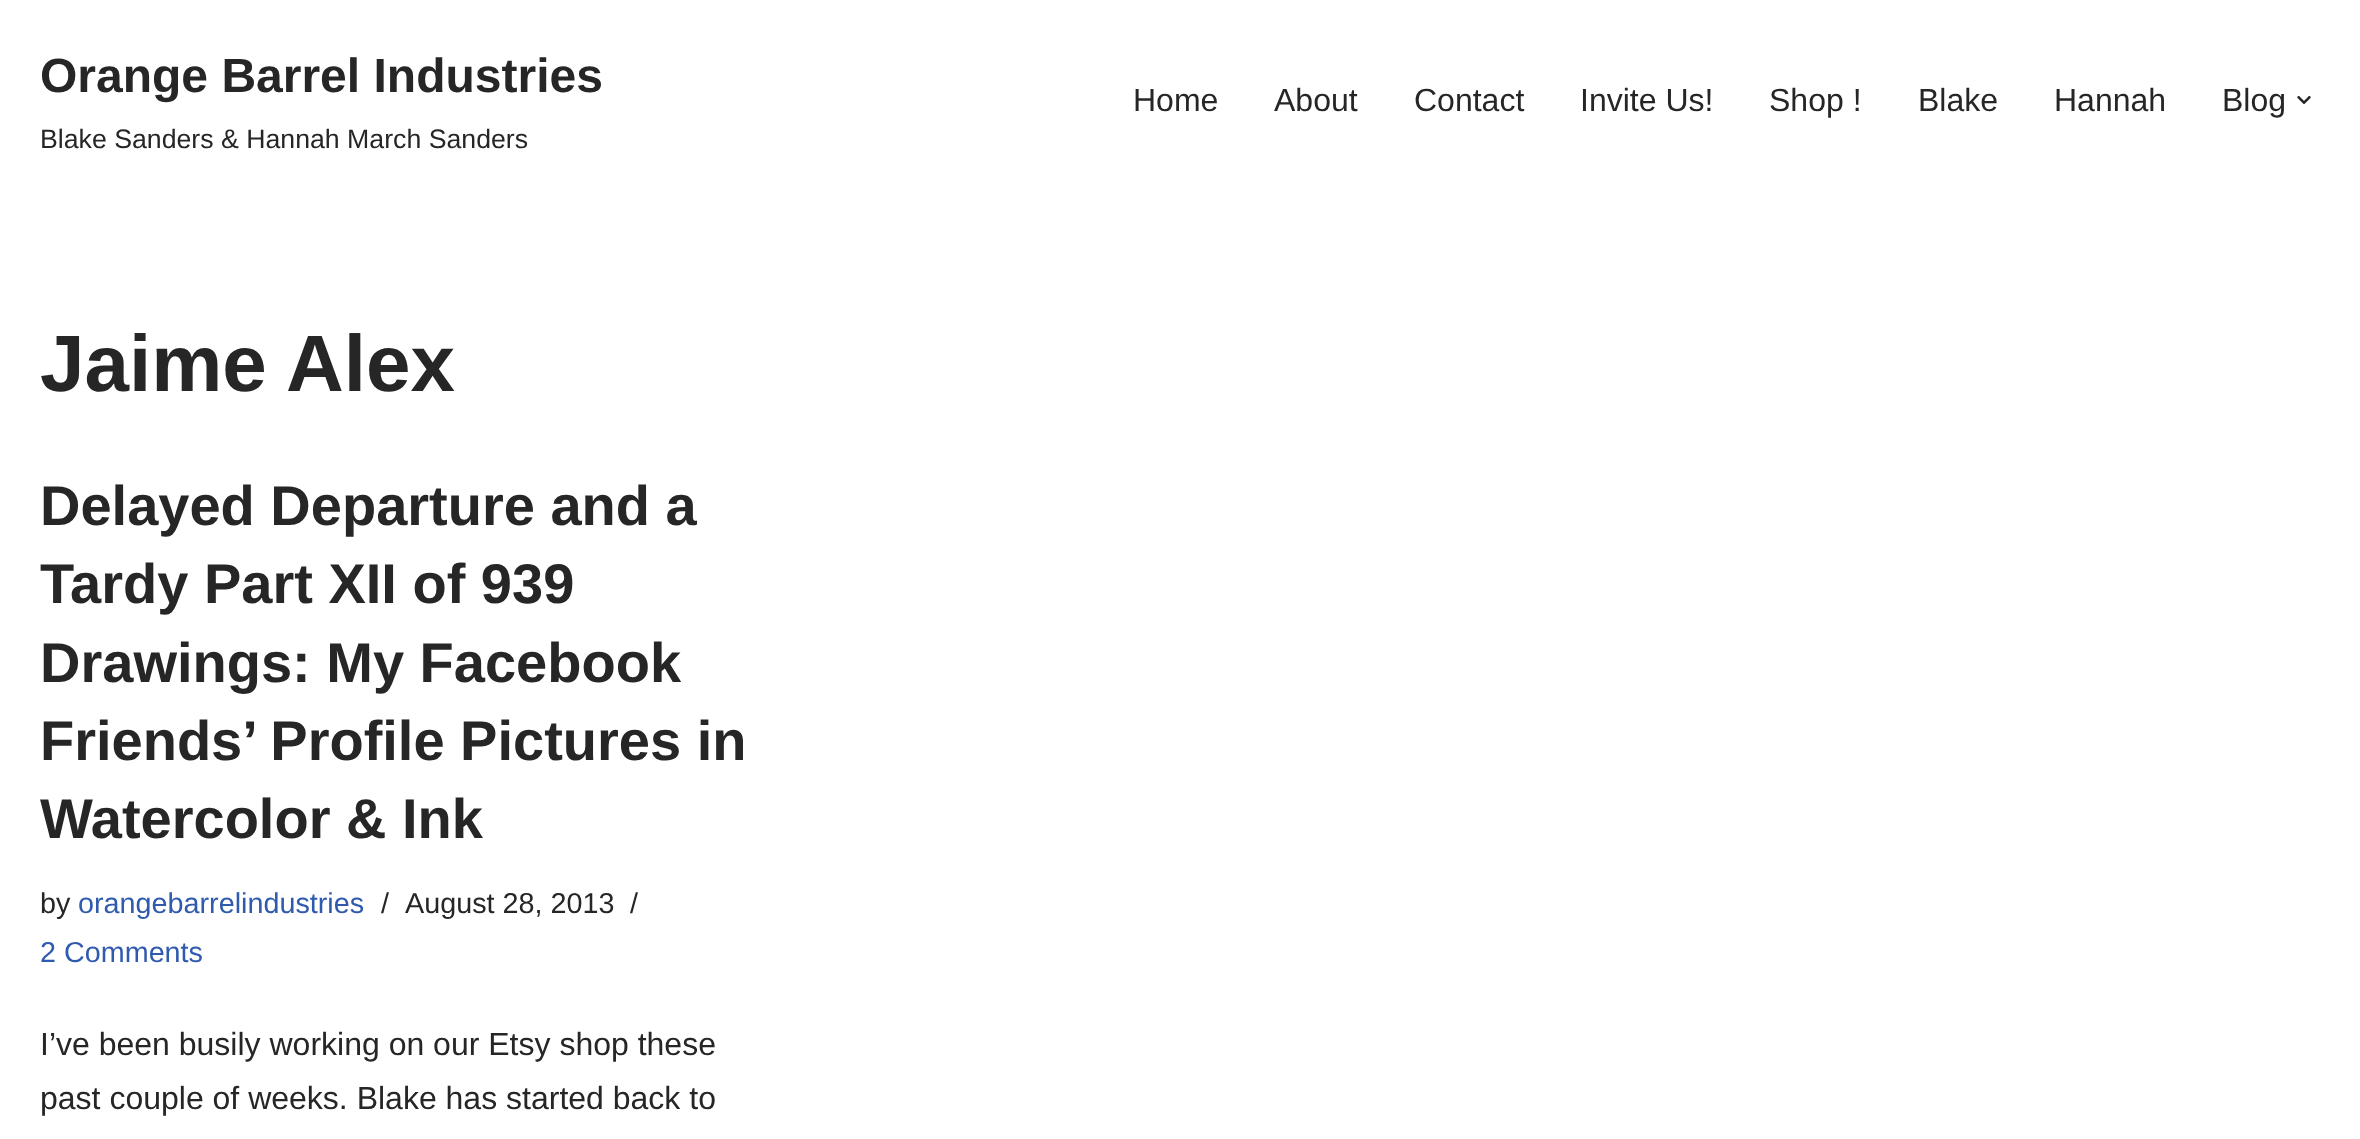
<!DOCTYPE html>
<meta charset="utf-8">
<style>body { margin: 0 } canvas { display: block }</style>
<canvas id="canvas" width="2360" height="1139"></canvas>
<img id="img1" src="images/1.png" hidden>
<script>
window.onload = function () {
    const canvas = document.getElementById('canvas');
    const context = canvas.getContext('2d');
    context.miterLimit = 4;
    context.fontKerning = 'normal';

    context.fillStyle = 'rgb(255, 255, 255)';
    context.fillRect(0, 0, 2360, 1139);
    context.drawImage(document.getElementById('img1'), 2297, 95, 14, 10);
    context.font = 'bold 48px Liberation Sans';
    context.fillStyle = 'rgb(39, 38, 38)';
    context.fillText('Orange Barrel Industries', 40, 92);
    context.font = '26.7px Liberation Sans';
    context.fillText('Blake Sanders & Hannah March Sanders', 40, 148);
    context.font = '32px Liberation Sans';
    context.fillText('Home', 1133, 111);
    context.fillText('About', 1274, 111);
    context.fillText('Contact', 1414, 111);
    context.fillText('Invite Us!', 1580, 111);
    context.fillText('Shop !', 1769, 111);
    context.fillText('Blake', 1918, 111);
    context.fillText('Hannah', 2054, 111);
    context.fillText('Blog', 2222, 111);
    context.font = 'bold 80px Liberation Sans';
    context.fillText('Jaime Alex', 40, 391);
    context.font = 'bold 56px Liberation Sans';
    context.fillText('Delayed Departure and a', 40, 525);
    context.fillText('Tardy Part XII of 939', 40, 603);
    context.fillText('Drawings: My Facebook', 40, 682);
    context.fillText('Friends’ Profile Pictures in', 40, 760);
    context.fillText('Watercolor & Ink', 40, 838);
    context.font = '28.75px Liberation Sans';
    context.fillText('by', 40, 913);
    context.fillStyle = 'rgb(47, 90, 174)';
    context.fillText('orangebarrelindustries', 78, 913);
    context.fillStyle = 'rgb(39, 38, 38)';
    context.fillText('/', 381, 913);
    context.fillText('August 28, 2013', 405, 913);
    context.fillText('/', 630, 913);
    context.fillStyle = 'rgb(47, 90, 174)';
    context.fillText('2 Comments', 40, 962);
    context.font = '32px Liberation Sans';
    context.fillStyle = 'rgb(39, 38, 38)';
    context.fillText('I’ve been busily working on our Etsy shop these', 40, 1055);
    context.fillText('past couple of weeks. Blake has started back to', 40, 1109);
};
</script>
